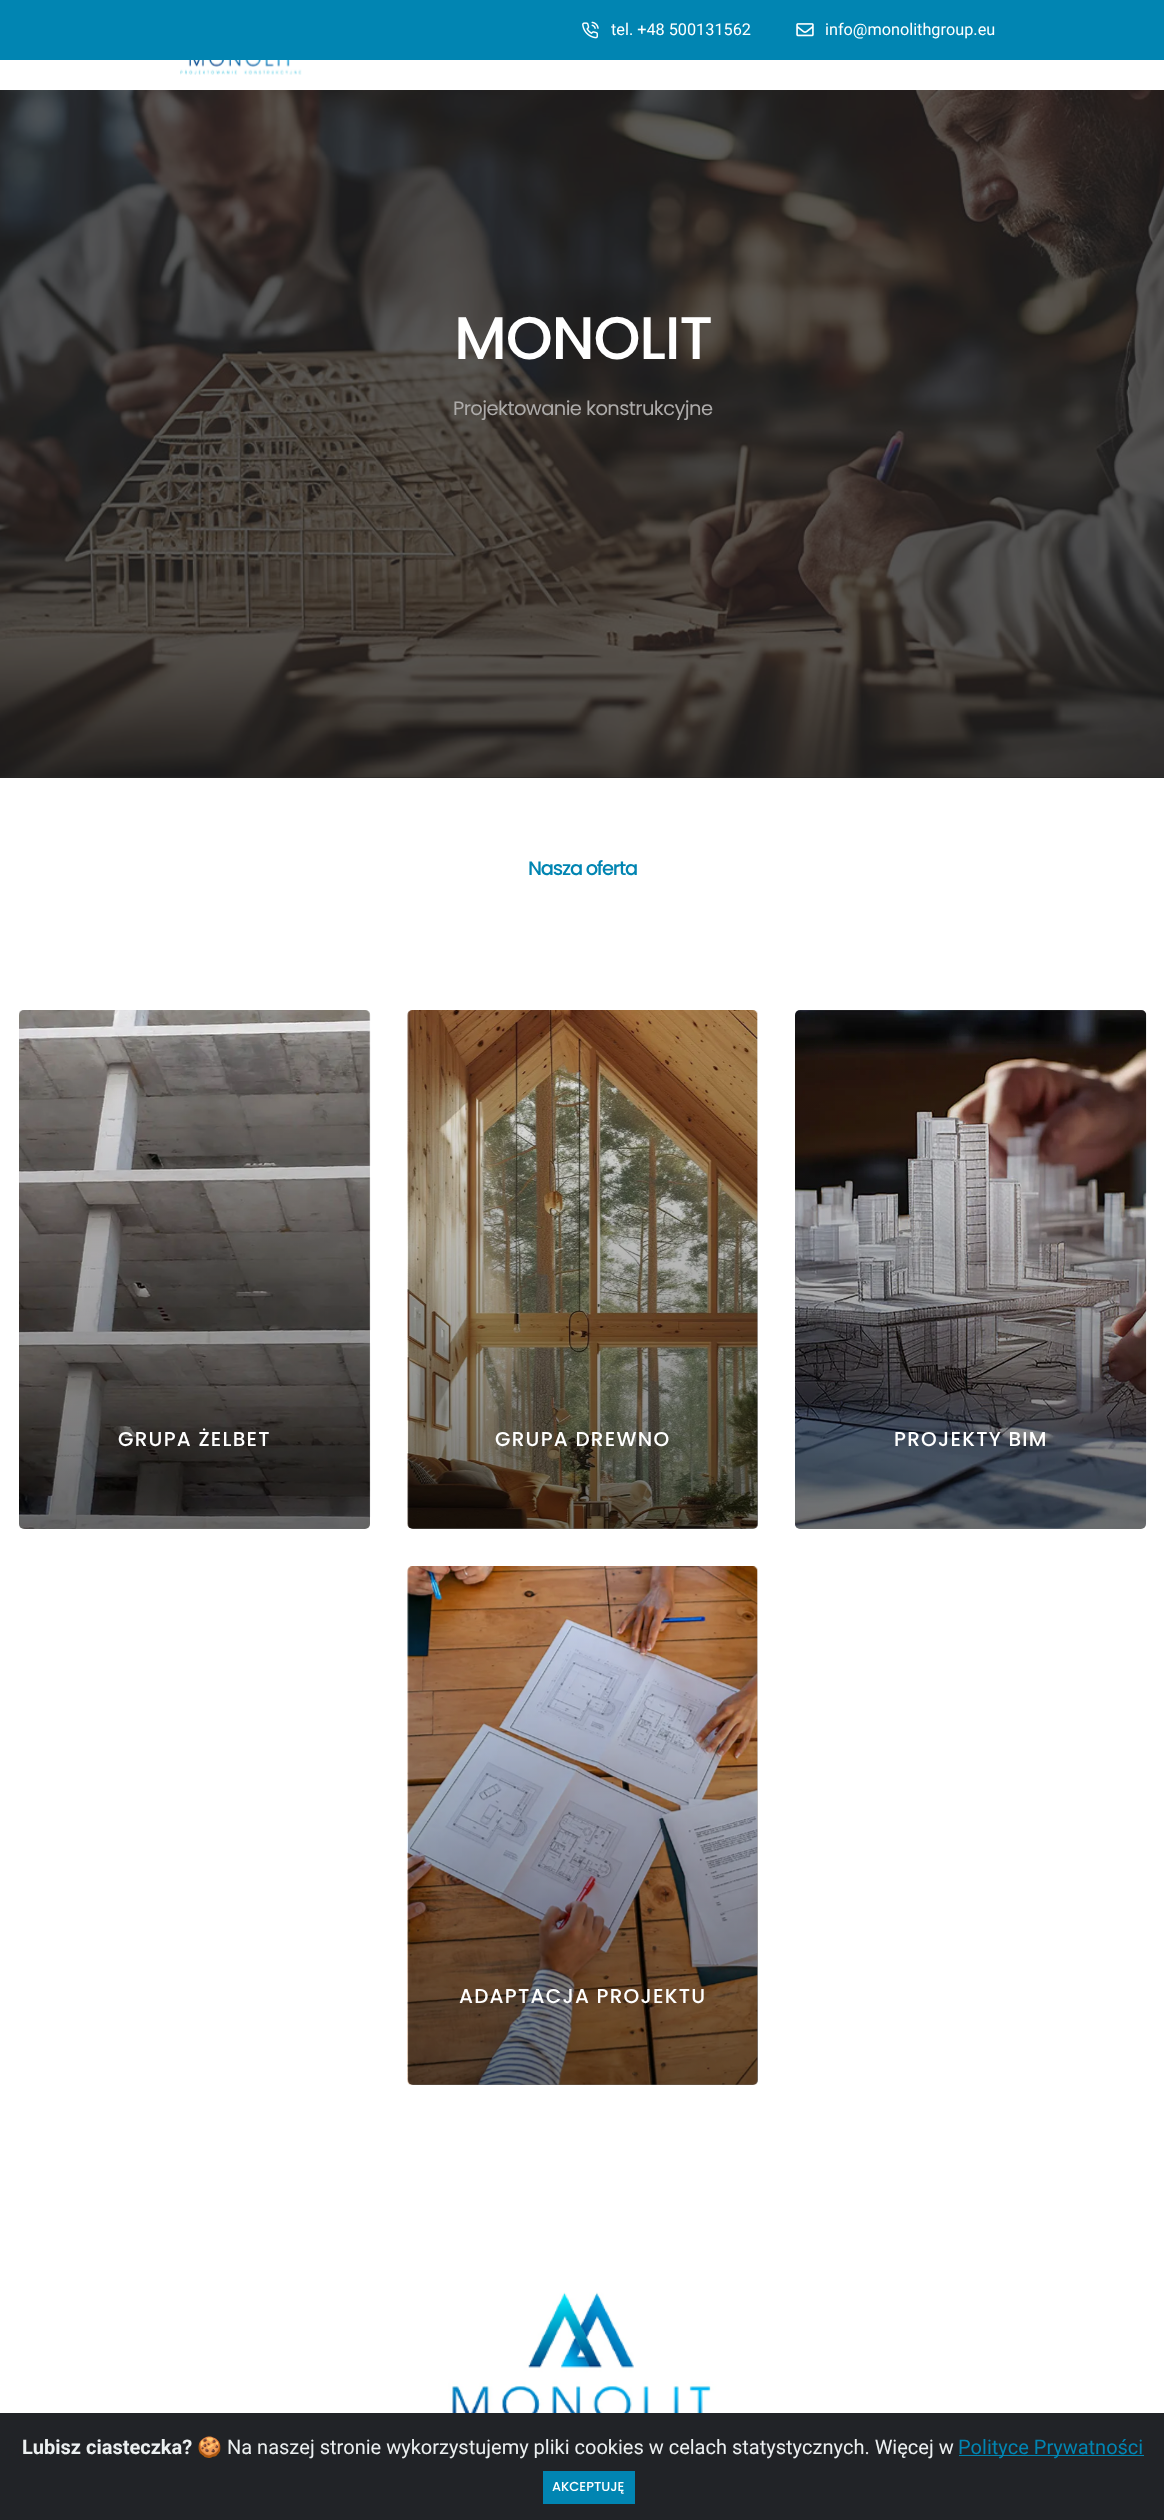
<!DOCTYPE html>
<meta charset="utf-8">
<style>body { margin: 0 } canvas { display: block }</style>
<canvas id="canvas" width="1164" height="2520"></canvas>
<img id="img1" src="images/1.png" hidden>
<img id="img2" src="images/2.png" hidden>
<img id="img3" src="images/3.png" hidden>
<img id="img4" src="images/4.png" hidden>
<img id="img5" src="images/5.png" hidden>
<img id="img6" src="images/6.png" hidden>
<img id="img7" src="images/7.png" hidden>
<img id="img8" src="images/8.png" hidden>
<img id="img9" src="images/9.png" hidden>
<script>
window.onload = function () {
    const canvas = document.getElementById('canvas');
    const context = canvas.getContext('2d');
    context.miterLimit = 4;
    context.fontKerning = 'none';
    let gradient;

    context.fillStyle = 'rgb(255, 255, 255)';
    context.fillRect(0, 0, 1164, 2520);
    context.fillStyle = 'rgb(1, 133, 178)';
    context.fillRect(0, 0, 1164, 60);
    context.drawImage(document.getElementById('img1'), 582, 21, 17, 18);
    context.drawImage(document.getElementById('img2'), 796, 23, 18, 14);
    context.drawImage(document.getElementById('img3'), 180, 60, 122, 15);
    context.fillStyle = 'rgb(35, 35, 35)';
    context.fillRect(0, 777, 1164, 1);
    context.drawImage(document.getElementById('img4'), 0, 90, 1164, 688);
    context.drawImage(document.getElementById('img5'), 19, 1010, 352, 519);
    gradient = context.createLinearGradient(194, 1010, 194, 1529);
    gradient.addColorStop(0, 'rgba(0, 0, 0, 0)');
    gradient.addColorStop(0.18, 'rgba(0, 0, 0, 0.11)');
    gradient.addColorStop(1, 'rgba(0, 0, 0, 0.57)');
    context.fillStyle = gradient;
    context.beginPath();
    context.roundRect(19, 1010, 351, 519, 5);
    context.fill();
    context.drawImage(document.getElementById('img6'), 407, 1010, 351, 519);
    gradient = context.createLinearGradient(583, 1010, 583, 1529);
    gradient.addColorStop(0, 'rgba(0, 0, 0, 0)');
    gradient.addColorStop(0.18, 'rgba(0, 0, 0, 0.11)');
    gradient.addColorStop(1, 'rgba(0, 0, 0, 0.57)');
    context.fillStyle = gradient;
    context.beginPath();
    context.roundRect(408, 1010, 350, 519, 5);
    context.fill();
    context.drawImage(document.getElementById('img7'), 795, 1010, 352, 519);
    gradient = context.createLinearGradient(971, 1010, 971, 1529);
    gradient.addColorStop(0, 'rgba(0, 0, 0, 0)');
    gradient.addColorStop(0.18, 'rgba(0, 0, 0, 0.11)');
    gradient.addColorStop(1, 'rgba(0, 0, 0, 0.57)');
    context.fillStyle = gradient;
    context.beginPath();
    context.roundRect(795, 1010, 351, 519, 5);
    context.fill();
    context.drawImage(document.getElementById('img8'), 407, 1566, 351, 519);
    gradient = context.createLinearGradient(583, 1566, 583, 2085);
    gradient.addColorStop(0, 'rgba(0, 0, 0, 0)');
    gradient.addColorStop(0.18, 'rgba(0, 0, 0, 0.11)');
    gradient.addColorStop(1, 'rgba(0, 0, 0, 0.57)');
    context.fillStyle = gradient;
    context.beginPath();
    context.roundRect(408, 1566, 350, 519, 5);
    context.fill();
    context.drawImage(document.getElementById('img9'), 428, 2292, 305, 121);
    context.fillStyle = 'rgb(33, 35, 39)';
    context.fillRect(0, 2413, 1164, 107);
    context.fillStyle = 'rgb(1, 133, 178)';
    context.fillRect(959, 2455, 185, 1);
    context.fillRect(543, 2471, 92, 33);
    context.font = '16.25px Roboto';
    context.fillStyle = 'rgb(255, 255, 255)';
    context.fillText('tel. +48 500131562', 611, 35);
    context.fillText('info@monolithgroup.eu', 825, 35);
    context.letterSpacing = '-1.25px';
    context.font = '500 60px Poppins';
    context.fillText('MONOLIT', 454, 359);
    context.letterSpacing = '-0.6px';
    context.font = '19.5px Poppins';
    context.fillStyle = 'rgb(173, 171, 170)';
    context.fillText('Projektowanie konstrukcyjne', 453, 415);
    context.letterSpacing = '-1.25px';
    context.font = '500 19.5px Poppins';
    context.fillStyle = 'rgb(1, 133, 178)';
    context.fillText('Nasza oferta', 528, 875);
    context.letterSpacing = '1.25px';
    context.font = '500 20px Poppins';
    context.fillStyle = 'rgb(255, 255, 255)';
    context.fillText('GRUPA ŻELBET', 118, 1446);
    context.fillText('GRUPA DREWNO', 495, 1446);
    context.fillText('PROJEKTY BIM', 894, 1446);
    context.fillText('ADAPTACJA PROJEKTU', 459, 2003);
    context.letterSpacing = '0px';
    context.font = 'bold 20px Roboto';
    context.fillStyle = 'rgb(236, 240, 241)';
    context.fillText('Lubisz ciasteczka?', 22, 2454);
    context.font = '20px Noto Color Emoji';
    context.fillText('🍪', 197, 2454);
    context.font = '20px Roboto';
    context.fillText('Na naszej stronie wykorzystujemy pliki cookies w celach statystycznych. Więcej w', 227, 2454);
    context.fillStyle = 'rgb(1, 133, 178)';
    context.fillText('Polityce Prywatności', 958, 2454);
    context.font = '500 13px Poppins';
    context.fillStyle = 'rgb(255, 255, 255)';
    context.fillText('AKCEPTUJĘ', 552, 2491);
};
</script>
